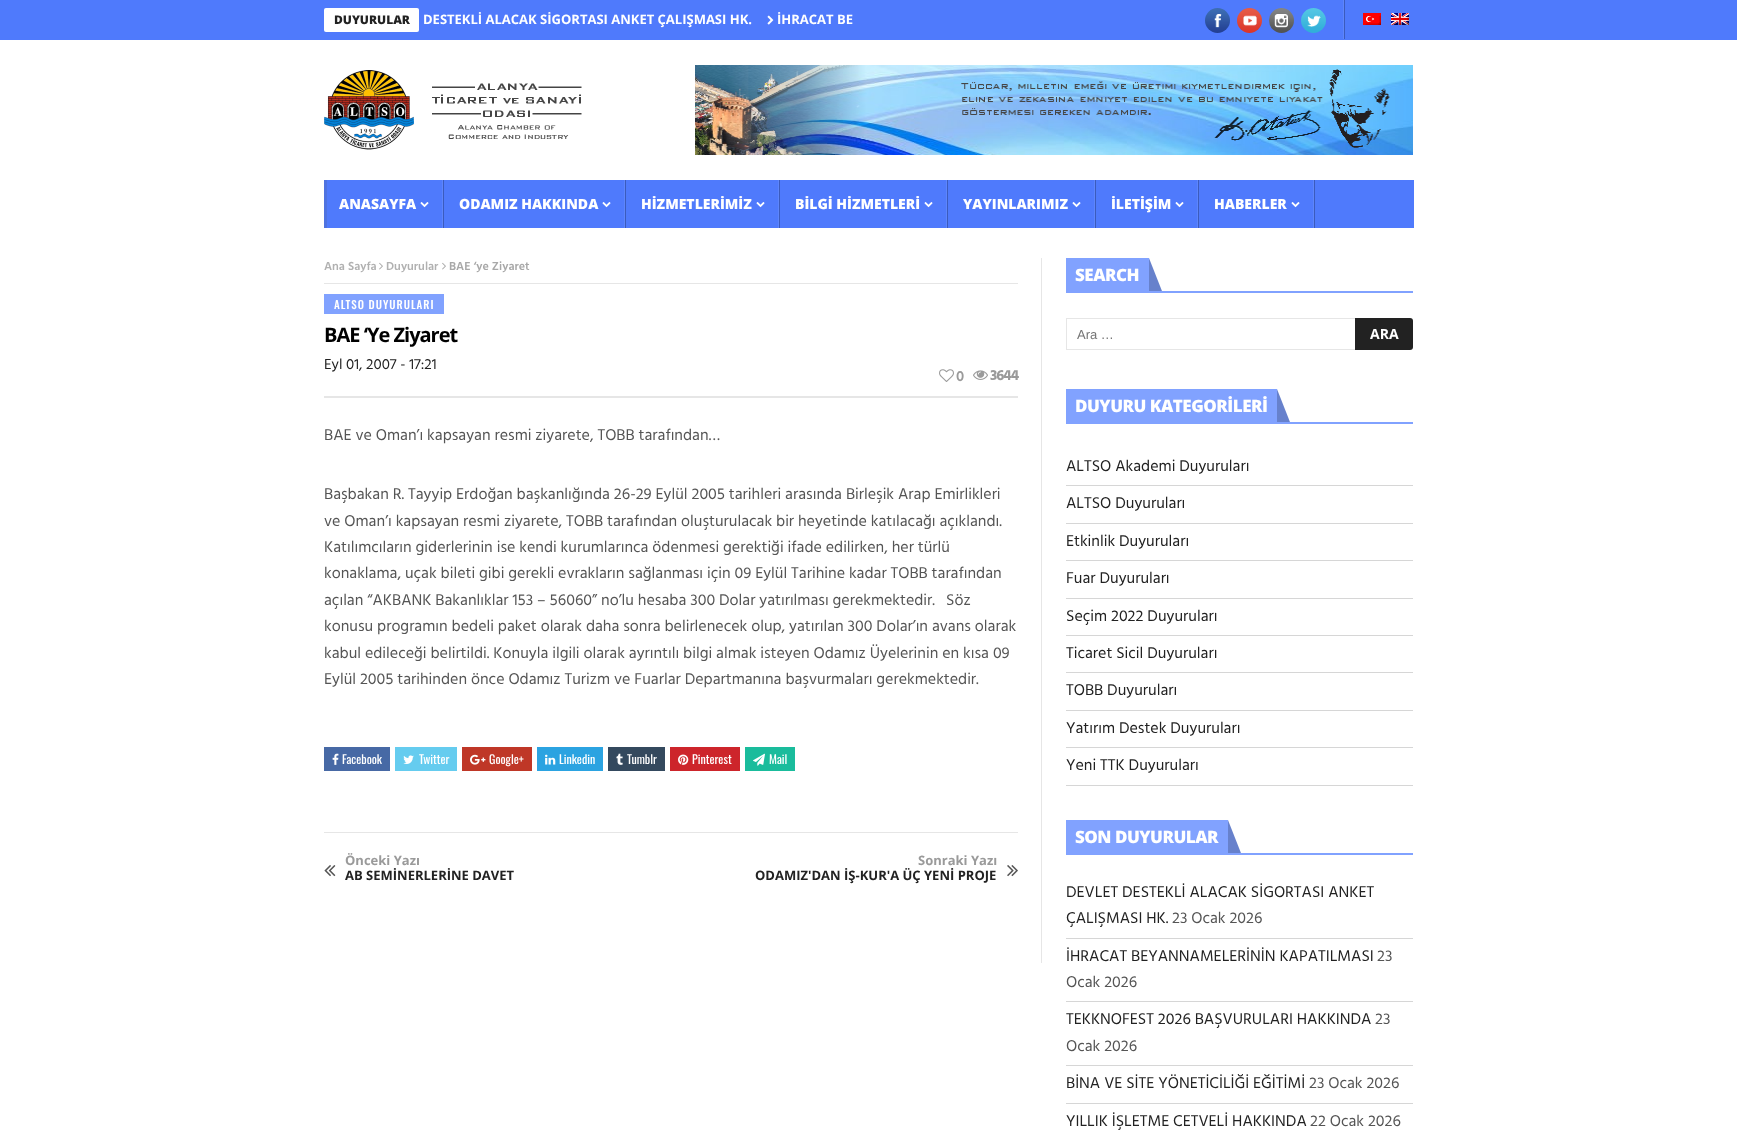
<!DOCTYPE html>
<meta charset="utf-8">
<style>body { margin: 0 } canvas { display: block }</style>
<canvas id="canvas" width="1737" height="1130"></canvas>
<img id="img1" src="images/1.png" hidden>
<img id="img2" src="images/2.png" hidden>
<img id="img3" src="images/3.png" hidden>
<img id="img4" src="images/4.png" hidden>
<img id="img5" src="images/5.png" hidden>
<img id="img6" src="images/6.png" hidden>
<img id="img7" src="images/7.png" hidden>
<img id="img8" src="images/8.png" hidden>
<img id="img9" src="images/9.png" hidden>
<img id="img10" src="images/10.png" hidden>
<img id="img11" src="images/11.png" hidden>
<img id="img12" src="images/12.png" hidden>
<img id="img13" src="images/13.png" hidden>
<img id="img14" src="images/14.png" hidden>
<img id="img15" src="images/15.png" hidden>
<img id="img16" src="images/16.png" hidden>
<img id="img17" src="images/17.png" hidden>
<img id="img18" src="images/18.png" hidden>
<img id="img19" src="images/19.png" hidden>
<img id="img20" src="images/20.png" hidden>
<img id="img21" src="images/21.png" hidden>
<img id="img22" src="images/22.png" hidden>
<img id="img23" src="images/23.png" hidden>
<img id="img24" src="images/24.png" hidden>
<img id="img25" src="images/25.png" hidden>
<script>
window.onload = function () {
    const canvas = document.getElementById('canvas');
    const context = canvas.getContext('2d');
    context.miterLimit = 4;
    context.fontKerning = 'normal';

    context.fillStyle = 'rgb(255, 255, 255)';
    context.fillRect(0, 0, 1737, 1130);
    context.fillStyle = 'rgb(79, 122, 252)';
    context.fillRect(0, 0, 1737, 40);
    context.fillStyle = 'rgb(255, 255, 255)';
    context.beginPath();
    context.roundRect(324, 8, 95, 24, 2);
    context.fill();
    context.drawImage(document.getElementById('img1'), 767, 15, 7, 10);
    context.drawImage(document.getElementById('img2'), 1205, 8, 25, 25);
    context.drawImage(document.getElementById('img3'), 1237, 8, 25, 25);
    context.drawImage(document.getElementById('img4'), 1269, 8, 25, 25);
    context.drawImage(document.getElementById('img5'), 1301, 8, 25, 25);
    context.drawImage(document.getElementById('img6'), 1343, 0, 2, 39);
    context.drawImage(document.getElementById('img7'), 1363, 13, 18, 12);
    context.drawImage(document.getElementById('img8'), 1391, 13, 18, 12);
    context.drawImage(document.getElementById('img9'), 324, 70, 258, 80);
    context.drawImage(document.getElementById('img10'), 695, 65, 718, 90);
    context.fillStyle = 'rgb(79, 122, 252)';
    context.fillRect(327, 180, 1087, 48);
    context.fillStyle = 'rgb(79, 115, 224)';
    context.fillRect(324, 180, 3, 48);
    context.drawImage(document.getElementById('img11'), 442, 180, 2, 48);
    context.drawImage(document.getElementById('img12'), 420, 202, 9, 6);
    context.drawImage(document.getElementById('img11'), 624, 180, 2, 48);
    context.drawImage(document.getElementById('img12'), 602, 202, 9, 6);
    context.drawImage(document.getElementById('img11'), 778, 180, 2, 48);
    context.drawImage(document.getElementById('img12'), 756, 202, 9, 6);
    context.drawImage(document.getElementById('img11'), 946, 180, 2, 48);
    context.drawImage(document.getElementById('img12'), 924, 202, 9, 6);
    context.drawImage(document.getElementById('img11'), 1094, 180, 2, 48);
    context.drawImage(document.getElementById('img12'), 1072, 202, 9, 6);
    context.drawImage(document.getElementById('img11'), 1197, 180, 2, 48);
    context.drawImage(document.getElementById('img12'), 1175, 202, 9, 6);
    context.drawImage(document.getElementById('img11'), 1313, 180, 2, 48);
    context.drawImage(document.getElementById('img12'), 1291, 202, 9, 6);
    context.fillStyle = 'rgb(230, 230, 230)';
    context.fillRect(1041, 258, 1, 705);
    context.fillRect(324, 283, 694, 1);
    context.drawImage(document.getElementById('img13'), 379, 262, 4, 8);
    context.drawImage(document.getElementById('img13'), 442, 262, 4, 8);
    context.fillRect(324, 396, 694, 2);
    context.fillStyle = 'rgb(129, 162, 255)';
    context.fillRect(324, 294, 120, 20);
    context.drawImage(document.getElementById('img14'), 939, 369, 15, 13);
    context.drawImage(document.getElementById('img15'), 973, 370, 15, 10);
    context.fillStyle = 'rgb(71, 105, 165)';
    context.fillRect(324, 747, 66, 24);
    context.drawImage(document.getElementById('img16'), 332, 753, 7, 12);
    context.fillStyle = 'rgb(101, 204, 239)';
    context.fillRect(395, 747, 62, 24);
    context.drawImage(document.getElementById('img17'), 403, 755, 11, 9);
    context.fillStyle = 'rgb(191, 55, 39)';
    context.fillRect(462, 747, 70, 24);
    context.drawImage(document.getElementById('img18'), 470, 754, 16, 11);
    context.fillStyle = 'rgb(43, 163, 225)';
    context.fillRect(537, 747, 66, 24);
    context.drawImage(document.getElementById('img19'), 545, 754, 11, 11);
    context.fillStyle = 'rgb(52, 73, 94)';
    context.fillRect(608, 747, 57, 24);
    context.drawImage(document.getElementById('img20'), 616, 753, 7, 12);
    context.fillStyle = 'rgb(205, 37, 43)';
    context.fillRect(670, 747, 70, 24);
    context.drawImage(document.getElementById('img21'), 678, 754, 11, 11);
    context.fillStyle = 'rgb(26, 188, 156)';
    context.fillRect(745, 747, 50, 24);
    context.drawImage(document.getElementById('img22'), 753, 753, 12, 13);
    context.fillStyle = 'rgb(230, 230, 230)';
    context.fillRect(324, 832, 694, 1);
    context.drawImage(document.getElementById('img23'), 324, 865, 12, 12);
    context.drawImage(document.getElementById('img24'), 1007, 865, 11, 12);
    context.fillStyle = 'rgb(129, 162, 255)';
    context.fillRect(1066, 291, 347, 2);
    context.fillRect(1066, 258, 96, 33);
    context.drawImage(document.getElementById('img25'), 1149, 258, 13, 33);
    context.strokeStyle = 'rgb(230, 230, 230)';
    context.strokeRect(1066.5, 318.5, 329, 31);
    context.fillStyle = 'rgb(34, 34, 34)';
    context.beginPath();
    context.roundRect(1355, 318, 58, 32, [0, 3, 3, 0]);
    context.fill();
    context.fillStyle = 'rgb(129, 162, 255)';
    context.fillRect(1066, 422, 347, 2);
    context.fillRect(1066, 389, 224, 33);
    context.drawImage(document.getElementById('img25'), 1277, 389, 13, 33);
    context.fillStyle = 'rgb(214, 214, 214)';
    context.fillRect(1066, 485, 347, 1);
    context.fillRect(1066, 523, 347, 1);
    context.fillRect(1066, 560, 347, 1);
    context.fillRect(1066, 598, 347, 1);
    context.fillRect(1066, 635, 347, 1);
    context.fillRect(1066, 672, 347, 1);
    context.fillRect(1066, 710, 347, 1);
    context.fillRect(1066, 747, 347, 1);
    context.fillRect(1066, 785, 347, 1);
    context.fillStyle = 'rgb(129, 162, 255)';
    context.fillRect(1066, 853, 347, 2);
    context.fillRect(1066, 820, 175, 33);
    context.drawImage(document.getElementById('img25'), 1228, 820, 13, 33);
    context.fillStyle = 'rgb(214, 214, 214)';
    context.fillRect(1066, 938, 347, 1);
    context.fillRect(1066, 1001, 347, 1);
    context.fillRect(1066, 1065, 347, 1);
    context.fillRect(1066, 1103, 347, 1);
    context.font = '800 12px Open Sans';
    context.fillStyle = 'rgb(34, 34, 34)';
    context.fillText('DUYURULAR', 334, 24);
    context.font = 'bold 13px Open Sans';
    context.fillStyle = 'rgb(255, 255, 255)';
    context.fillText('DESTEKLİ ALACAK SİGORTASI ANKET ÇALIŞMASI HK.', 423, 24);
    context.fillText('İHRACAT BE', 777, 24);
    context.font = '800 14px Open Sans';
    context.fillText('ANASAYFA', 339, 209);
    context.fillText('ODAMIZ HAKKINDA', 459, 209);
    context.fillText('HİZMETLERİMİZ', 641, 209);
    context.fillText('BİLGİ HİZMETLERİ', 795, 209);
    context.fillText('YAYINLARIMIZ', 963, 209);
    context.fillText('İLETİŞİM', 1111, 209);
    context.fillText('HABERLER', 1214, 209);
    context.font = '600 12px Hind';
    context.fillStyle = 'rgb(177, 177, 177)';
    context.fillText('Ana Sayfa', 324, 270);
    context.fillText('Duyurular', 386, 270);
    context.fillStyle = 'rgb(168, 168, 168)';
    context.fillText('BAE ‘ye Ziyaret', 449, 270);
    context.letterSpacing = '1px';
    context.font = '500 11px Oswald';
    context.fillStyle = 'rgb(255, 255, 255)';
    context.fillText('ALTSO DUYURULARI', 334, 309);
    context.letterSpacing = '-1px';
    context.font = 'bold 20px Open Sans';
    context.fillStyle = 'rgb(0, 0, 0)';
    context.fillText('BAE ‘Ye Ziyaret', 324, 342);
    context.letterSpacing = '0px';
    context.font = '15px Hind';
    context.fillStyle = 'rgb(34, 34, 34)';
    context.fillText('Eyl 01, 2007 - 17:21', 324, 369);
    context.letterSpacing = '-1px';
    context.font = '600 15px Hind';
    context.fillStyle = 'rgb(154, 154, 154)';
    context.fillText('0', 956, 381);
    context.font = 'bold 15px Hind';
    context.fillText('3644', 990, 380);
    context.letterSpacing = '0px';
    context.font = '16px Hind';
    context.fillStyle = 'rgb(85, 85, 85)';
    context.fillText('BAE ve Oman’ı kapsayan resmi ziyarete, TOBB tarafından…', 324, 440);
    context.fillText('Başbakan R. Tayyip Erdoğan başkanlığında 26-29 Eylül 2005 tarihleri arasında Birleşik Arap Emirlikleri', 324, 499);
    context.fillText('ve Oman’ı kapsayan resmi ziyarete, TOBB tarafından oluşturulacak bir heyetinde katılacağı açıklandı.', 324, 526);
    context.fillText('Katılımcıların giderlerinin ise kendi kurumlarınca ödenmesi gerektiği ifade edilirken, her türlü', 324, 552);
    context.fillText('konaklama, uçak bileti gibi gerekli evrakların sağlanması için 09 Eylül Tarihine kadar TOBB tarafından', 324, 578);
    context.fillText('açılan “AKBANK Bakanlıklar 153 – 56060” no’lu hesaba 300 Dolar yatırılması gerekmektedir.', 324, 605);
    context.fillText('Söz', 946, 605);
    context.fillText('konusu programın bedeli paket olarak daha sonra belirlenecek olup, yatırılan 300 Dolar’ın avans olarak', 324, 631);
    context.fillText('kabul edileceği belirtildi. Konuyla ilgili olarak ayrıntılı bilgi almak isteyen Odamız Üyelerinin en kısa 09', 324, 658);
    context.fillText('Eylül 2005 tarihinden önce Odamız Turizm ve Fuarlar Departmanına başvurmaları gerekmektedir.', 324, 684);
    context.font = '12px Oswald';
    context.fillStyle = 'rgb(255, 255, 255)';
    context.fillText('Facebook', 342, 764);
    context.fillText('Twitter', 419, 764);
    context.fillText('Google+', 489, 764);
    context.fillText('Linkedin', 559, 764);
    context.fillText('Tumblr', 627, 764);
    context.fillText('Pinterest', 692, 764);
    context.fillText('Mail', 769, 764);
    context.font = 'bold 13px Open Sans';
    context.fillStyle = 'rgb(154, 154, 154)';
    context.fillText('Önceki Yazı', 345, 865);
    context.fillStyle = 'rgb(34, 34, 34)';
    context.fillText('AB SEMİNERLERİNE DAVET', 345, 880);
    context.fillStyle = 'rgb(154, 154, 154)';
    context.fillText('Sonraki Yazı', 918, 865);
    context.fillStyle = 'rgb(34, 34, 34)';
    context.fillText('ODAMIZ\'DAN İŞ-KUR\'A ÜÇ YENİ PROJE', 755, 880);
    context.letterSpacing = '-0.5px';
    context.font = '800 17px Open Sans';
    context.fillStyle = 'rgb(255, 255, 255)';
    context.fillText('SEARCH', 1075, 281);
    context.letterSpacing = '0px';
    context.font = '13px Liberation Sans';
    context.fillStyle = 'rgb(117, 117, 117)';
    context.fillText('Ara …', 1077, 339);
    context.font = 'bold 14px Open Sans';
    context.fillStyle = 'rgb(255, 255, 255)';
    context.fillText('ARA', 1370, 339);
    context.letterSpacing = '-0.5px';
    context.font = '800 17px Open Sans';
    context.fillText('DUYURU KATEGORİLERİ', 1075, 412);
    context.letterSpacing = '0px';
    context.font = '16px Hind';
    context.fillStyle = 'rgb(34, 34, 34)';
    context.fillText('ALTSO Akademi Duyuruları', 1066, 471);
    context.fillText('ALTSO Duyuruları', 1066, 508);
    context.fillText('Etkinlik Duyuruları', 1066, 546);
    context.fillText('Fuar Duyuruları', 1066, 583);
    context.fillText('Seçim 2022 Duyuruları', 1066, 621);
    context.fillText('Ticaret Sicil Duyuruları', 1066, 658);
    context.fillText('TOBB Duyuruları', 1066, 695);
    context.fillText('Yatırım Destek Duyuruları', 1066, 733);
    context.fillText('Yeni TTK Duyuruları', 1066, 770);
    context.letterSpacing = '-0.5px';
    context.font = '800 17px Open Sans';
    context.fillStyle = 'rgb(255, 255, 255)';
    context.fillText('SON DUYURULAR', 1075, 843);
    context.letterSpacing = '0px';
    context.font = '16px Hind';
    context.fillStyle = 'rgb(34, 34, 34)';
    context.fillText('DEVLET DESTEKLİ ALACAK SİGORTASI ANKET', 1066, 897);
    context.fillText('ÇALIŞMASI HK.', 1066, 923);
    context.fillStyle = 'rgb(85, 85, 85)';
    context.fillText('23 Ocak 2026', 1172, 923);
    context.fillStyle = 'rgb(34, 34, 34)';
    context.fillText('İHRACAT BEYANNAMELERİNİN KAPATILMASI', 1066, 961);
    context.fillStyle = 'rgb(85, 85, 85)';
    context.fillText('23', 1377, 961);
    context.fillText('Ocak 2026', 1066, 987);
    context.fillStyle = 'rgb(34, 34, 34)';
    context.fillText('TEKKNOFEST 2026 BAŞVURULARI HAKKINDA', 1066, 1024);
    context.fillStyle = 'rgb(85, 85, 85)';
    context.fillText('23', 1375, 1024);
    context.fillText('Ocak 2026', 1066, 1051);
    context.fillStyle = 'rgb(34, 34, 34)';
    context.fillText('BİNA VE SİTE YÖNETİCİLİĞİ EĞİTİMİ', 1066, 1088);
    context.fillStyle = 'rgb(85, 85, 85)';
    context.fillText('23 Ocak 2026', 1309, 1088);
    context.fillStyle = 'rgb(34, 34, 34)';
    context.fillText('YILLIK İŞLETME CETVELİ HAKKINDA', 1066, 1126);
    context.fillStyle = 'rgb(85, 85, 85)';
    context.fillText('22 Ocak 2026', 1310, 1126);
};
</script>
